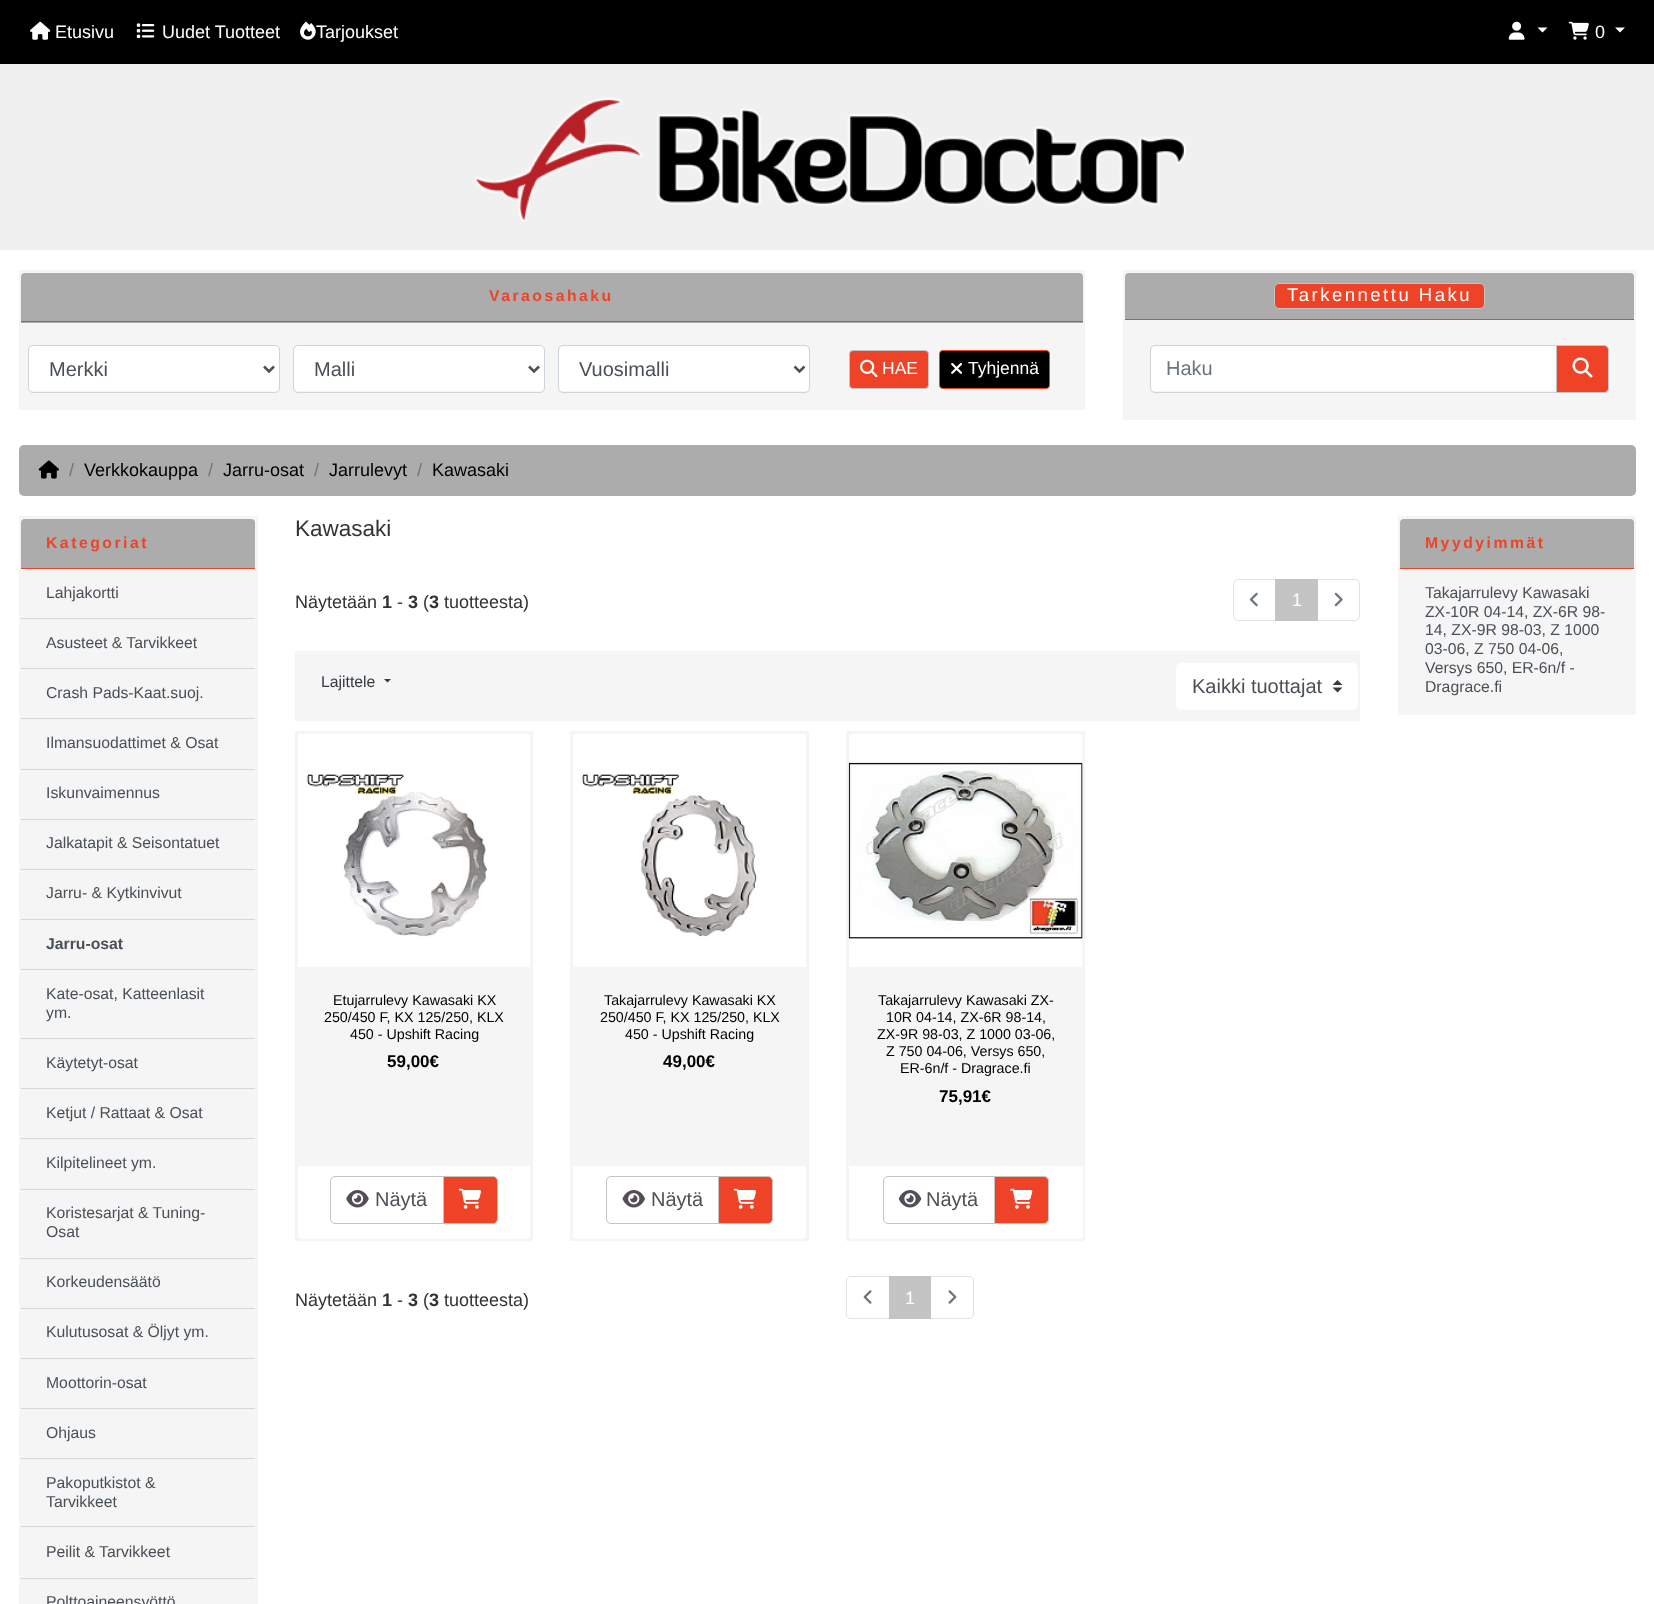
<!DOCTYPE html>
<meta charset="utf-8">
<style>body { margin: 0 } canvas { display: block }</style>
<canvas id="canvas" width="1654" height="1604"></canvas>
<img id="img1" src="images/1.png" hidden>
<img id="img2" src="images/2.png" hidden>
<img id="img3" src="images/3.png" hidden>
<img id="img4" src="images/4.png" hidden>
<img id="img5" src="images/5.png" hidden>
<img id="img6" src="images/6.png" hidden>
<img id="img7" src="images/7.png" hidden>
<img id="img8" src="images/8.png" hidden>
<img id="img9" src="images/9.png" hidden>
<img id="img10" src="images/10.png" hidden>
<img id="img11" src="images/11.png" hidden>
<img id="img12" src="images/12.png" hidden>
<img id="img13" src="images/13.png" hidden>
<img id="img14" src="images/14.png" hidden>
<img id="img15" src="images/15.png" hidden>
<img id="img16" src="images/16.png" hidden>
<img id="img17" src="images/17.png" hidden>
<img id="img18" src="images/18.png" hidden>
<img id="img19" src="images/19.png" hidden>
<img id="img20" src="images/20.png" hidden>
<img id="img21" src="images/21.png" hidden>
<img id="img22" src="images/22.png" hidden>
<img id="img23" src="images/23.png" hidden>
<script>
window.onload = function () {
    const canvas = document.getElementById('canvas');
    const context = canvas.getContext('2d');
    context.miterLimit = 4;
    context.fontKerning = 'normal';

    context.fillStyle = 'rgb(255, 255, 255)';
    context.fillRect(0, 0, 1654, 1604);
    context.fillStyle = 'rgb(0, 0, 0)';
    context.fillRect(0, 0, 1654, 64);
    context.drawImage(document.getElementById('img1'), 30, 21, 21, 19);
    context.drawImage(document.getElementById('img2'), 136, 23, 19, 16);
    context.drawImage(document.getElementById('img3'), 300, 21, 16, 19);
    context.drawImage(document.getElementById('img4'), 1508, 21, 17, 19);
    context.fillStyle = 'rgb(255, 255, 255)';
    context.beginPath();
    context.moveTo(1537.5, 27.5);
    context.lineTo(1547.5, 27.5);
    context.lineTo(1542.5, 32.5);
    context.closePath();
    context.fill();
    context.drawImage(document.getElementById('img5'), 1568, 21, 21, 19);
    context.beginPath();
    context.moveTo(1615, 27.5);
    context.lineTo(1625, 27.5);
    context.lineTo(1620, 32.5);
    context.closePath();
    context.fill();
    context.fillStyle = 'rgb(240, 240, 240)';
    context.fillRect(0, 64, 1654, 186);
    context.drawImage(document.getElementById('img6'), 474, 97, 713, 125);
    context.fillStyle = 'rgb(245, 245, 245)';
    context.fillRect(19, 270, 1066, 140);
    context.fillStyle = 'rgb(173, 172, 172)';
    context.beginPath();
    context.roundRect(21, 273, 1062, 50, [4, 4, 0, 0]);
    context.fill();
    context.fillStyle = 'rgb(238, 67, 38)';
    context.fillRect(21, 321, 1062, 1);
    context.fillStyle = 'rgb(255, 255, 255)';
    context.beginPath();
    context.roundRect(29, 346, 250, 45, 4);
    context.fill();
    context.beginPath();
    context.roundRect(28.5, 345.5, 251, 47, 4.5);
    context.strokeStyle = 'rgb(206, 212, 218)';
    context.stroke();
    context.beginPath();
    context.moveTo(264, 366.5);
    context.lineTo(269, 371.5);
    context.lineTo(274, 366.5);
    context.strokeStyle = 'rgb(73, 80, 87)';
    context.lineWidth = 2.5;
    context.stroke();
    context.beginPath();
    context.roundRect(294, 346, 250, 45, 4);
    context.fill();
    context.beginPath();
    context.roundRect(293.5, 345.5, 251, 47, 4.5);
    context.strokeStyle = 'rgb(206, 212, 218)';
    context.lineWidth = 1;
    context.stroke();
    context.beginPath();
    context.moveTo(529, 366.5);
    context.lineTo(534, 371.5);
    context.lineTo(539, 366.5);
    context.strokeStyle = 'rgb(73, 80, 87)';
    context.lineWidth = 2.5;
    context.stroke();
    context.beginPath();
    context.roundRect(559, 346, 250, 45, 4);
    context.fill();
    context.beginPath();
    context.roundRect(558.5, 345.5, 251, 47, 4.5);
    context.strokeStyle = 'rgb(206, 212, 218)';
    context.lineWidth = 1;
    context.stroke();
    context.beginPath();
    context.moveTo(794.5, 366.5);
    context.lineTo(799.5, 371.5);
    context.lineTo(804.5, 366.5);
    context.strokeStyle = 'rgb(73, 80, 87)';
    context.lineWidth = 2.5;
    context.stroke();
    context.fillStyle = 'rgb(238, 67, 38)';
    context.beginPath();
    context.roundRect(849.5, 350.5, 79, 38, 3.5);
    context.fill();
    context.strokeStyle = 'rgb(196, 196, 196)';
    context.lineWidth = 1;
    context.stroke();
    context.drawImage(document.getElementById('img7'), 860, 359, 18, 19);
    context.fillStyle = 'rgb(0, 0, 0)';
    context.beginPath();
    context.roundRect(939.5, 350.5, 110, 38, 3.5);
    context.fill();
    context.strokeStyle = 'rgb(238, 67, 38)';
    context.stroke();
    context.drawImage(document.getElementById('img8'), 951, 363, 11, 11);
    context.fillStyle = 'rgb(245, 245, 245)';
    context.fillRect(1123, 270, 513, 150);
    context.fillStyle = 'rgb(173, 172, 172)';
    context.beginPath();
    context.roundRect(1125, 273, 509, 47, [4, 4, 0, 0]);
    context.fill();
    context.fillStyle = 'rgb(238, 67, 38)';
    context.fillRect(1125, 319, 509, 1);
    context.beginPath();
    context.roundRect(1274.5, 283.5, 210, 25, 4.5);
    context.fill();
    context.strokeStyle = 'rgb(196, 196, 196)';
    context.stroke();
    context.fillStyle = 'rgb(255, 255, 255)';
    context.beginPath();
    context.roundRect(1151, 346, 405, 45, [4, 0, 0, 4]);
    context.fill();
    context.beginPath();
    context.roundRect(1150.5, 345.5, 407, 47, [4.5, 0, 0, 4.5]);
    context.strokeStyle = 'rgb(206, 212, 218)';
    context.stroke();
    context.fillStyle = 'rgb(238, 67, 38)';
    context.beginPath();
    context.roundRect(1556.5, 345.5, 52, 47, [0, 4.5, 4.5, 0]);
    context.fill();
    context.strokeStyle = 'rgb(196, 196, 196)';
    context.stroke();
    context.drawImage(document.getElementById('img9'), 1572, 357, 21, 21);
    context.fillStyle = 'rgb(173, 172, 172)';
    context.beginPath();
    context.roundRect(19, 445, 1617, 51, 5);
    context.fill();
    context.drawImage(document.getElementById('img10'), 38, 460, 21, 19);
    context.fillStyle = 'rgb(245, 245, 245)';
    context.fillRect(19, 516, 239, 1088);
    context.fillStyle = 'rgb(173, 172, 172)';
    context.beginPath();
    context.roundRect(21, 519, 234, 50, [4, 4, 0, 0]);
    context.fill();
    context.fillStyle = 'rgb(238, 67, 38)';
    context.fillRect(21, 568, 234, 1);
    context.fillStyle = 'rgb(214, 214, 214)';
    context.fillRect(21, 618, 234, 1);
    context.fillRect(21, 668, 234, 1);
    context.fillRect(21, 718, 234, 1);
    context.fillRect(21, 769, 234, 1);
    context.fillRect(21, 819, 234, 1);
    context.fillRect(21, 869, 234, 1);
    context.fillRect(21, 919, 234, 1);
    context.fillRect(21, 969, 234, 1);
    context.fillRect(21, 1038, 234, 1);
    context.fillRect(21, 1088, 234, 1);
    context.fillRect(21, 1138, 234, 1);
    context.fillRect(21, 1189, 234, 1);
    context.fillRect(21, 1258, 234, 1);
    context.fillRect(21, 1308, 234, 1);
    context.fillRect(21, 1358, 234, 1);
    context.fillRect(21, 1408, 234, 1);
    context.fillRect(21, 1458, 234, 1);
    context.fillRect(21, 1526, 234, 1);
    context.fillRect(21, 1578, 234, 1);
    context.beginPath();
    context.roundRect(1233.5, 579.5, 42, 41, [4.5, 0, 0, 4.5]);
    context.strokeStyle = 'rgb(222, 226, 230)';
    context.stroke();
    context.drawImage(document.getElementById('img11'), 1249, 592, 9, 15);
    context.beginPath();
    context.roundRect(1316.5, 579.5, 43, 41, [0, 4.5, 4.5, 0]);
    context.stroke();
    context.fillStyle = 'rgb(196, 196, 196)';
    context.fillRect(1275, 579, 43, 42);
    context.drawImage(document.getElementById('img12'), 1334, 592, 9, 15);
    context.fillStyle = 'rgb(245, 245, 245)';
    context.fillRect(295, 651, 1065, 70);
    context.fillStyle = 'rgb(52, 58, 64)';
    context.beginPath();
    context.moveTo(384, 679);
    context.lineTo(391, 679);
    context.lineTo(387.5, 682.5);
    context.closePath();
    context.fill();
    context.fillStyle = 'rgb(255, 255, 255)';
    context.beginPath();
    context.roundRect(1176, 663, 182, 47, 5);
    context.fill();
    context.drawImage(document.getElementById('img13'), 1333, 680, 10, 13);
    context.fillStyle = 'rgb(245, 245, 245)';
    context.fillRect(295, 731, 238, 510);
    context.drawImage(document.getElementById('img14'), 298, 734, 232, 233);
    context.fillStyle = 'rgb(255, 255, 255)';
    context.beginPath();
    context.roundRect(298, 1166, 232, 73, [0, 0, 4, 4]);
    context.fill();
    context.beginPath();
    context.roundRect(330.5, 1176.5, 113, 47, [4.5, 0, 0, 4.5]);
    context.strokeStyle = 'rgb(196, 196, 196)';
    context.stroke();
    context.drawImage(document.getElementById('img15'), 346, 1190, 23, 18);
    context.fillStyle = 'rgb(238, 67, 38)';
    context.beginPath();
    context.roundRect(443.5, 1176.5, 54, 47, [0, 4.5, 4.5, 0]);
    context.fill();
    context.stroke();
    context.drawImage(document.getElementById('img16'), 458, 1188, 23, 21);
    context.fillStyle = 'rgb(245, 245, 245)';
    context.fillRect(570, 731, 239, 510);
    context.drawImage(document.getElementById('img17'), 573, 734, 233, 233);
    context.fillStyle = 'rgb(255, 255, 255)';
    context.beginPath();
    context.roundRect(573, 1166, 233, 73, [0, 0, 4, 4]);
    context.fill();
    context.beginPath();
    context.roundRect(606.5, 1176.5, 112, 47, [4.5, 0, 0, 4.5]);
    context.stroke();
    context.drawImage(document.getElementById('img18'), 622, 1190, 23, 18);
    context.fillStyle = 'rgb(238, 67, 38)';
    context.beginPath();
    context.roundRect(718.5, 1176.5, 54, 47, [0, 4.5, 4.5, 0]);
    context.fill();
    context.stroke();
    context.drawImage(document.getElementById('img16'), 733, 1188, 23, 21);
    context.fillStyle = 'rgb(245, 245, 245)';
    context.fillRect(846, 731, 239, 510);
    context.drawImage(document.getElementById('img19'), 848, 734, 235, 233);
    context.fillStyle = 'rgb(255, 255, 255)';
    context.beginPath();
    context.roundRect(849, 1166, 234, 73, [0, 0, 4, 4]);
    context.fill();
    context.beginPath();
    context.roundRect(883.5, 1176.5, 111, 47, [4.5, 0, 0, 4.5]);
    context.stroke();
    context.drawImage(document.getElementById('img20'), 898, 1190, 24, 18);
    context.fillStyle = 'rgb(238, 67, 38)';
    context.beginPath();
    context.roundRect(994.5, 1176.5, 54, 47, [0, 4.5, 4.5, 0]);
    context.fill();
    context.stroke();
    context.drawImage(document.getElementById('img21'), 1010, 1188, 23, 21);
    context.beginPath();
    context.roundRect(846.5, 1276.5, 43, 42, [4.5, 0, 0, 4.5]);
    context.strokeStyle = 'rgb(222, 226, 230)';
    context.stroke();
    context.drawImage(document.getElementById('img22'), 863, 1290, 9, 14);
    context.beginPath();
    context.roundRect(930.5, 1276.5, 43, 42, [0, 4.5, 4.5, 0]);
    context.stroke();
    context.fillStyle = 'rgb(196, 196, 196)';
    context.fillRect(889, 1276, 42, 43);
    context.drawImage(document.getElementById('img23'), 948, 1290, 9, 14);
    context.fillStyle = 'rgb(245, 245, 245)';
    context.fillRect(1398, 516, 238, 199);
    context.fillStyle = 'rgb(173, 172, 172)';
    context.beginPath();
    context.roundRect(1400, 519, 234, 50, [4, 4, 0, 0]);
    context.fill();
    context.fillStyle = 'rgb(238, 67, 38)';
    context.fillRect(1400, 568, 234, 1);
    context.font = '18px Liberation Sans';
    context.fillStyle = 'rgb(255, 255, 255)';
    context.fillText('Etusivu', 55, 38);
    context.fillText('Uudet Tuotteet', 162, 38);
    context.fillText('Tarjoukset', 316, 38);
    context.fillText('0', 1595, 38);
    context.letterSpacing = '2.5px';
    context.font = 'bold 15.75px Liberation Sans';
    context.fillStyle = 'rgb(238, 67, 38)';
    context.fillText('Varaosahaku', 489, 301);
    context.letterSpacing = '0px';
    context.font = '20px Liberation Sans';
    context.fillStyle = 'rgb(73, 80, 87)';
    context.fillText('Merkki', 49, 376);
    context.fillText('Malli', 314, 376);
    context.fillText('Vuosimalli', 579, 376);
    context.font = '17.5px Liberation Sans';
    context.fillStyle = 'rgb(255, 255, 255)';
    context.fillText('HAE', 882, 374);
    context.fillText('Tyhjennä', 968, 374);
    context.letterSpacing = '2.5px';
    context.font = '18.5px Liberation Sans';
    context.fillText('Tarkennettu Haku', 1287, 301);
    context.letterSpacing = '0px';
    context.font = '20px Liberation Sans';
    context.fillStyle = 'rgb(108, 117, 125)';
    context.fillText('Haku', 1166, 375);
    context.font = '18px Liberation Sans';
    context.fillText('/', 69, 476);
    context.fillStyle = 'rgb(0, 0, 0)';
    context.fillText('Verkkokauppa', 84, 476);
    context.fillStyle = 'rgb(108, 117, 125)';
    context.fillText('/', 208, 476);
    context.fillStyle = 'rgb(0, 0, 0)';
    context.fillText('Jarru-osat', 223, 476);
    context.fillStyle = 'rgb(108, 117, 125)';
    context.fillText('/', 314, 476);
    context.fillStyle = 'rgb(0, 0, 0)';
    context.fillText('Jarrulevyt', 329, 476);
    context.fillStyle = 'rgb(108, 117, 125)';
    context.fillText('/', 417, 476);
    context.fillStyle = 'rgb(0, 0, 0)';
    context.fillText('Kawasaki', 432, 476);
    context.letterSpacing = '2.5px';
    context.font = 'bold 15.75px Liberation Sans';
    context.fillStyle = 'rgb(238, 67, 38)';
    context.fillText('Kategoriat', 46, 548);
    context.letterSpacing = '0px';
    context.font = '15.75px Liberation Sans';
    context.fillStyle = 'rgb(73, 80, 87)';
    context.fillText('Lahjakortti', 46, 598);
    context.fillText('Asusteet & Tarvikkeet', 46, 648);
    context.fillText('Crash Pads-Kaat.suoj.', 46, 698);
    context.fillText('Ilmansuodattimet & Osat', 46, 748);
    context.fillText('Iskunvaimennus', 46, 798);
    context.fillText('Jalkatapit & Seisontatuet', 46, 848);
    context.fillText('Jarru- & Kytkinvivut', 46, 898);
    context.font = 'bold 15.75px Liberation Sans';
    context.fillText('Jarru-osat', 46, 949);
    context.font = '15.75px Liberation Sans';
    context.fillText('Kate-osat, Katteenlasit', 46, 999);
    context.fillText('ym.', 46, 1018);
    context.fillText('Käytetyt-osat', 46, 1068);
    context.fillText('Ketjut / Rattaat & Osat', 46, 1118);
    context.fillText('Kilpitelineet ym.', 46, 1168);
    context.fillText('Koristesarjat & Tuning-', 46, 1218);
    context.fillText('Osat', 46, 1237);
    context.fillText('Korkeudensäätö', 46, 1287);
    context.fillText('Kulutusosat & Öljyt ym.', 46, 1337);
    context.fillText('Moottorin-osat', 46, 1388);
    context.fillText('Ohjaus', 46, 1438);
    context.fillText('Pakoputkistot &', 46, 1488);
    context.fillText('Tarvikkeet', 46, 1507);
    context.fillText('Peilit & Tarvikkeet', 46, 1557);
    context.fillText('Polttoaineensyöttö', 46, 1607);
    context.font = '22.5px Liberation Sans';
    context.fillStyle = 'rgb(51, 51, 51)';
    context.fillText('Kawasaki', 295, 536);
    context.font = '18px Liberation Sans';
    context.fillText('Näytetään', 295, 608);
    context.font = 'bold 18px Liberation Sans';
    context.fillText('1', 382, 608);
    context.font = '18px Liberation Sans';
    context.fillText('-', 397, 608);
    context.font = 'bold 18px Liberation Sans';
    context.fillText('3', 408, 608);
    context.font = '18px Liberation Sans';
    context.fillText('(', 423, 608);
    context.font = 'bold 18px Liberation Sans';
    context.fillText('3', 429, 608);
    context.font = '18px Liberation Sans';
    context.fillText('tuotteesta)', 444, 608);
    context.fillStyle = 'rgb(255, 255, 255)';
    context.fillText('1', 1292, 606);
    context.font = '15.75px Liberation Sans';
    context.fillStyle = 'rgb(52, 58, 64)';
    context.fillText('Lajittele', 321, 687);
    context.font = '20px Liberation Sans';
    context.fillStyle = 'rgb(73, 80, 87)';
    context.fillText('Kaikki tuottajat', 1192, 693);
    context.font = '14.25px Liberation Sans';
    context.fillStyle = 'rgb(0, 0, 0)';
    context.fillText('Etujarrulevy Kawasaki KX', 333, 1005);
    context.fillText('250/450 F, KX 125/250, KLX', 324, 1022);
    context.fillText('450 - Upshift Racing', 350, 1039);
    context.font = 'bold 17px Liberation Sans';
    context.fillText('59,00€', 387, 1067);
    context.font = '20px Liberation Sans';
    context.fillStyle = 'rgb(84, 77, 87)';
    context.fillText('Näytä', 375, 1206);
    context.font = '14.25px Liberation Sans';
    context.fillStyle = 'rgb(0, 0, 0)';
    context.fillText('Takajarrulevy Kawasaki KX', 604, 1005);
    context.fillText('250/450 F, KX 125/250, KLX', 600, 1022);
    context.fillText('450 - Upshift Racing', 625, 1039);
    context.font = 'bold 17px Liberation Sans';
    context.fillText('49,00€', 663, 1067);
    context.font = '20px Liberation Sans';
    context.fillStyle = 'rgb(84, 77, 87)';
    context.fillText('Näytä', 651, 1206);
    context.font = '14.25px Liberation Sans';
    context.fillStyle = 'rgb(0, 0, 0)';
    context.fillText('Takajarrulevy Kawasaki ZX-', 878, 1005);
    context.fillText('10R 04-14, ZX-6R 98-14,', 886, 1022);
    context.fillText('ZX-9R 98-03, Z 1000 03-06,', 877, 1039);
    context.fillText('Z 750 04-06, Versys 650,', 886, 1056);
    context.fillText('ER-6n/f - Dragrace.fi', 900, 1073);
    context.font = 'bold 17px Liberation Sans';
    context.fillText('75,91€', 939, 1102);
    context.font = '20px Liberation Sans';
    context.fillStyle = 'rgb(84, 77, 87)';
    context.fillText('Näytä', 926, 1206);
    context.font = '18px Liberation Sans';
    context.fillStyle = 'rgb(51, 51, 51)';
    context.fillText('Näytetään', 295, 1306);
    context.font = 'bold 18px Liberation Sans';
    context.fillText('1', 382, 1306);
    context.font = '18px Liberation Sans';
    context.fillText('-', 397, 1306);
    context.font = 'bold 18px Liberation Sans';
    context.fillText('3', 408, 1306);
    context.font = '18px Liberation Sans';
    context.fillText('(', 423, 1306);
    context.font = 'bold 18px Liberation Sans';
    context.fillText('3', 429, 1306);
    context.font = '18px Liberation Sans';
    context.fillText('tuotteesta)', 444, 1306);
    context.fillStyle = 'rgb(255, 255, 255)';
    context.fillText('1', 905, 1304);
    context.letterSpacing = '2.5px';
    context.font = 'bold 15.75px Liberation Sans';
    context.fillStyle = 'rgb(238, 67, 38)';
    context.fillText('Myydyimmät', 1425, 548);
    context.letterSpacing = '0px';
    context.font = '15.75px Liberation Sans';
    context.fillStyle = 'rgb(73, 80, 87)';
    context.fillText('Takajarrulevy Kawasaki', 1425, 598);
    context.fillText('ZX-10R 04-14, ZX-6R 98-', 1425, 617);
    context.fillText('14, ZX-9R 98-03, Z 1000', 1425, 635);
    context.fillText('03-06, Z 750 04-06,', 1425, 654);
    context.fillText('Versys 650, ER-6n/f -', 1425, 673);
    context.fillText('Dragrace.fi', 1425, 692);
};
</script>
